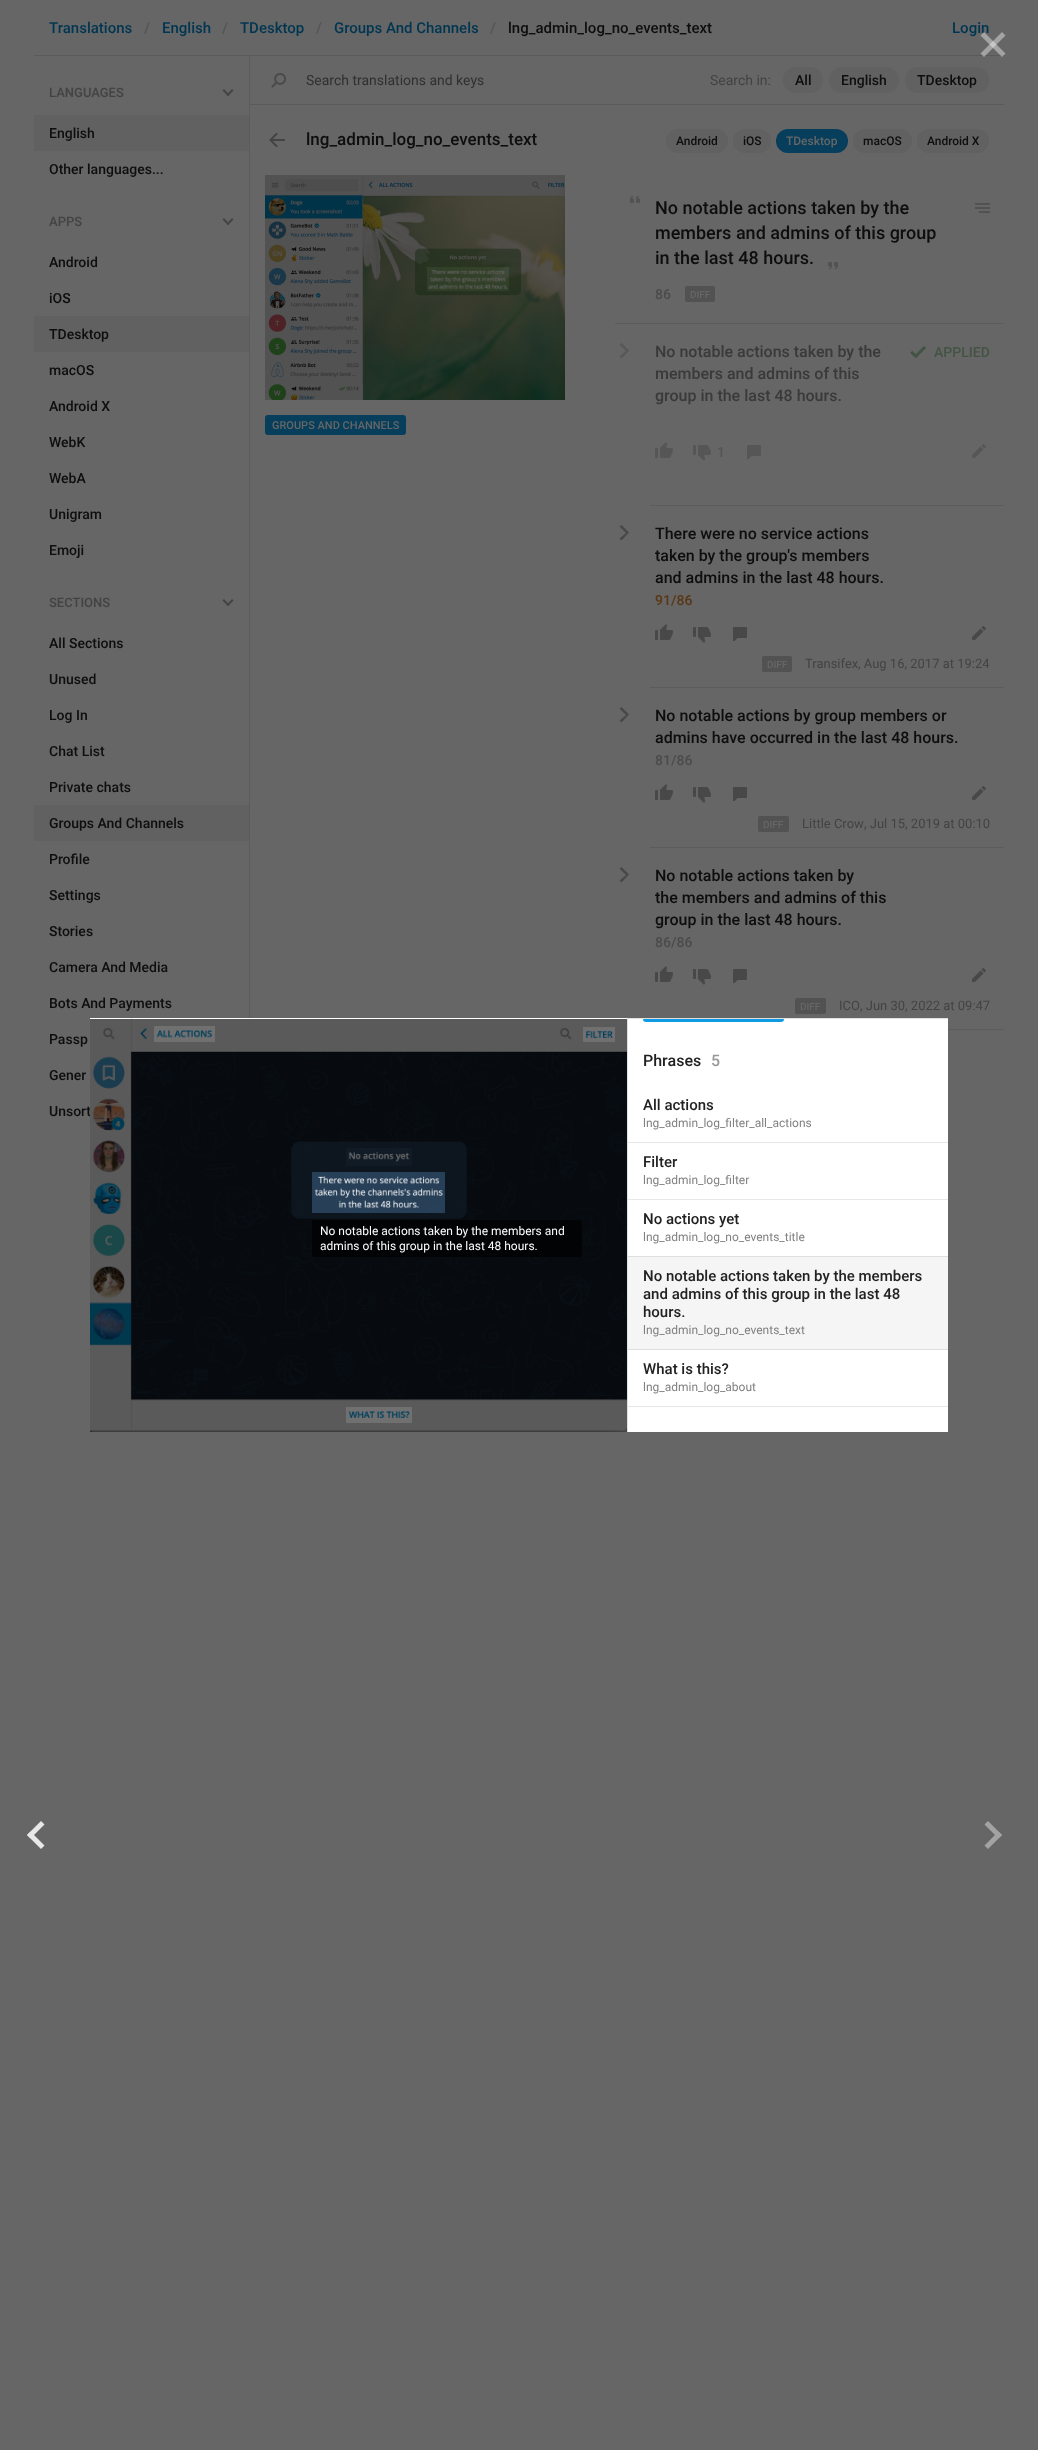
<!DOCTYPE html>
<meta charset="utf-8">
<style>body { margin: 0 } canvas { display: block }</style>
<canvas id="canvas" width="1038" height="2450"></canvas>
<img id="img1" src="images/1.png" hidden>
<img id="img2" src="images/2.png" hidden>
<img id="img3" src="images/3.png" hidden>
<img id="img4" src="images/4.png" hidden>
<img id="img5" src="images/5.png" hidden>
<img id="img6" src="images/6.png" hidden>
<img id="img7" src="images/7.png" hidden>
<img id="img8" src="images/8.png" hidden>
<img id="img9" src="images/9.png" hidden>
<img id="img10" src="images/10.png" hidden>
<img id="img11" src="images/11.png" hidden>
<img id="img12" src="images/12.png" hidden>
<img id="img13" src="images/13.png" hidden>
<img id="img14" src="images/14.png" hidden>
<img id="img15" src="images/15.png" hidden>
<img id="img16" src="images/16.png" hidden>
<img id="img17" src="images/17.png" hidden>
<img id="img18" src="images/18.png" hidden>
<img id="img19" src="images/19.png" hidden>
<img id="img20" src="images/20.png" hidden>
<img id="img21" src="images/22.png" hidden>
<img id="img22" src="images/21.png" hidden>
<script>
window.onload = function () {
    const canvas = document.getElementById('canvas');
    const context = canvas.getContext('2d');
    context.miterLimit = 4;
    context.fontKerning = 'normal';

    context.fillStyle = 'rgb(102, 102, 102)';
    context.fillRect(0, 0, 1038, 2450);
    context.fillStyle = 'rgb(90, 90, 90)';
    context.fillRect(34, 55, 970, 1);
    context.fillRect(250, 104, 754, 1);
    context.drawImage(document.getElementById('img1'), 271, 73, 15, 15);
    context.fillStyle = 'rgb(97, 97, 97)';
    context.beginPath();
    context.roundRect(783, 67, 40, 26, 13);
    context.fill();
    context.beginPath();
    context.roundRect(829, 67, 70, 26, 13);
    context.fill();
    context.beginPath();
    context.roundRect(905, 67, 84, 26, 13);
    context.fill();
    context.fillStyle = 'rgb(67, 67, 67)';
    context.beginPath();
    context.moveTo(228, 96);
    context.lineTo(222.5, 90.5);
    context.lineTo(224, 89);
    context.lineTo(229.5, 95);
    context.closePath();
    context.fill();
    context.beginPath();
    context.moveTo(228, 96);
    context.lineTo(226.5, 95);
    context.lineTo(232, 89);
    context.lineTo(233.5, 90.5);
    context.closePath();
    context.fill();
    context.fillStyle = 'rgb(97, 97, 97)';
    context.fillRect(34, 115, 215, 36);
    context.fillStyle = 'rgb(67, 67, 67)';
    context.beginPath();
    context.moveTo(228, 225);
    context.lineTo(222.5, 219.5);
    context.lineTo(224, 218);
    context.lineTo(229.5, 224);
    context.closePath();
    context.fill();
    context.beginPath();
    context.moveTo(228, 225);
    context.lineTo(226.5, 224);
    context.lineTo(232, 218);
    context.lineTo(233.5, 219.5);
    context.closePath();
    context.fill();
    context.fillStyle = 'rgb(97, 97, 97)';
    context.fillRect(34, 316, 215, 36);
    context.fillStyle = 'rgb(67, 67, 67)';
    context.beginPath();
    context.moveTo(228, 606);
    context.lineTo(222.5, 600.5);
    context.lineTo(224, 599);
    context.lineTo(229.5, 605);
    context.closePath();
    context.fill();
    context.beginPath();
    context.moveTo(228, 606);
    context.lineTo(226.5, 605);
    context.lineTo(232, 599);
    context.lineTo(233.5, 600.5);
    context.closePath();
    context.fill();
    context.fillStyle = 'rgb(97, 97, 97)';
    context.fillRect(34, 805, 215, 36);
    context.fillStyle = 'rgb(92, 92, 92)';
    context.fillRect(249, 56, 1, 962);
    context.drawImage(document.getElementById('img2'), 269, 133, 16, 14);
    context.fillStyle = 'rgb(97, 97, 97)';
    context.beginPath();
    context.roundRect(666, 129, 62, 24, 12);
    context.fill();
    context.beginPath();
    context.roundRect(733, 129, 38, 24, 12);
    context.fill();
    context.fillStyle = 'rgb(6, 62, 91)';
    context.beginPath();
    context.roundRect(776, 129, 72, 24, 12);
    context.fill();
    context.fillStyle = 'rgb(97, 97, 97)';
    context.beginPath();
    context.roundRect(853, 129, 59, 24, 12);
    context.fill();
    context.beginPath();
    context.roundRect(917, 129, 72, 24, 12);
    context.fill();
    context.drawImage(document.getElementById('img3'), 265, 175, 300, 225);
    context.drawImage(document.getElementById('img4'), 427, 267, 82, 24);
    context.fillStyle = 'rgb(6, 62, 91)';
    context.beginPath();
    context.roundRect(265, 415, 141, 20, 3);
    context.fill();
    context.drawImage(document.getElementById('img5'), 630, 196, 10, 7);
    context.drawImage(document.getElementById('img6'), 828, 262, 10, 7);
    context.drawImage(document.getElementById('img7'), 975, 203, 15, 10);
    context.fillStyle = 'rgb(82, 82, 82)';
    context.beginPath();
    context.roundRect(685, 286, 30, 16, 2);
    context.fill();
    context.fillStyle = 'rgb(92, 92, 92)';
    context.fillRect(615, 323, 389, 1);
    context.save();
    context.beginPath();
    context.rect(590, 324, 414, 707);
    context.clip();
    context.beginPath();
    context.moveTo(650, 505);
    context.lineTo(650, 506);
    context.lineTo(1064, 506);
    context.lineTo(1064, 325);
    context.lineTo(1004, 325);
    context.lineTo(1004, 505);
    context.closePath();
    context.fill();
    context.restore();
    context.fillStyle = 'rgb(87, 87, 87)';
    context.beginPath();
    context.moveTo(626, 351);
    context.lineTo(619.5, 356.5);
    context.lineTo(621.5, 358.5);
    context.lineTo(629, 350.5);
    context.lineTo(621.5, 343);
    context.lineTo(619.5, 344.5);
    context.closePath();
    context.fill();
    context.drawImage(document.getElementById('img8'), 655, 442, 18, 16);
    context.drawImage(document.getElementById('img9'), 693, 445, 18, 16);
    context.drawImage(document.getElementById('img10'), 747, 445, 14, 14);
    context.drawImage(document.getElementById('img11'), 972, 444, 14, 14);
    context.drawImage(document.getElementById('img12'), 910, 346, 16, 12);
    context.save();
    context.beginPath();
    context.rect(590, 324, 414, 707);
    context.clip();
    context.fillStyle = 'rgb(92, 92, 92)';
    context.beginPath();
    context.moveTo(650, 687);
    context.lineTo(650, 688);
    context.lineTo(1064, 688);
    context.lineTo(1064, 507);
    context.lineTo(1004, 507);
    context.lineTo(1004, 687);
    context.closePath();
    context.fill();
    context.restore();
    context.fillStyle = 'rgb(72, 72, 72)';
    context.beginPath();
    context.moveTo(626, 533);
    context.lineTo(619.5, 538.5);
    context.lineTo(621.5, 540.5);
    context.lineTo(629, 532.5);
    context.lineTo(621.5, 525);
    context.lineTo(619.5, 526.5);
    context.closePath();
    context.fill();
    context.drawImage(document.getElementById('img13'), 655, 624, 18, 16);
    context.drawImage(document.getElementById('img14'), 693, 627, 18, 16);
    context.drawImage(document.getElementById('img15'), 733, 627, 14, 14);
    context.drawImage(document.getElementById('img16'), 972, 626, 14, 14);
    context.fillStyle = 'rgb(82, 82, 82)';
    context.beginPath();
    context.roundRect(762, 656, 30, 16, 2);
    context.fill();
    context.save();
    context.beginPath();
    context.rect(590, 324, 414, 707);
    context.clip();
    context.fillStyle = 'rgb(92, 92, 92)';
    context.beginPath();
    context.moveTo(650, 847);
    context.lineTo(650, 848);
    context.lineTo(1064, 848);
    context.lineTo(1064, 689);
    context.lineTo(1004, 689);
    context.lineTo(1004, 847);
    context.closePath();
    context.fill();
    context.restore();
    context.fillStyle = 'rgb(72, 72, 72)';
    context.beginPath();
    context.moveTo(626, 715);
    context.lineTo(619.5, 720.5);
    context.lineTo(621.5, 722.5);
    context.lineTo(629, 714.5);
    context.lineTo(621.5, 707);
    context.lineTo(619.5, 708.5);
    context.closePath();
    context.fill();
    context.drawImage(document.getElementById('img13'), 655, 784, 18, 16);
    context.drawImage(document.getElementById('img14'), 693, 787, 18, 16);
    context.drawImage(document.getElementById('img15'), 733, 787, 14, 14);
    context.drawImage(document.getElementById('img16'), 972, 786, 14, 14);
    context.fillStyle = 'rgb(82, 82, 82)';
    context.beginPath();
    context.roundRect(758, 816, 31, 16, 2);
    context.fill();
    context.save();
    context.beginPath();
    context.rect(590, 324, 414, 707);
    context.clip();
    context.fillStyle = 'rgb(92, 92, 92)';
    context.beginPath();
    context.moveTo(650, 1029);
    context.lineTo(650, 1030);
    context.lineTo(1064, 1030);
    context.lineTo(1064, 849);
    context.lineTo(1004, 849);
    context.lineTo(1004, 1029);
    context.closePath();
    context.fill();
    context.restore();
    context.fillStyle = 'rgb(72, 72, 72)';
    context.beginPath();
    context.moveTo(626, 875);
    context.lineTo(619.5, 880.5);
    context.lineTo(621.5, 882.5);
    context.lineTo(629, 874.5);
    context.lineTo(621.5, 867);
    context.lineTo(619.5, 868.5);
    context.closePath();
    context.fill();
    context.drawImage(document.getElementById('img13'), 655, 966, 18, 16);
    context.drawImage(document.getElementById('img14'), 693, 969, 18, 16);
    context.drawImage(document.getElementById('img15'), 733, 969, 14, 14);
    context.drawImage(document.getElementById('img16'), 972, 968, 14, 14);
    context.fillStyle = 'rgb(82, 82, 82)';
    context.beginPath();
    context.roundRect(795, 998, 31, 16, 2);
    context.fill();
    context.fillStyle = 'rgb(163, 163, 163)';
    context.beginPath();
    context.moveTo(988, 1821);
    context.lineTo(1002, 1835);
    context.lineTo(998.5, 1838.5);
    context.lineTo(984.5, 1824.5);
    context.closePath();
    context.fill();
    context.beginPath();
    context.moveTo(984.5, 1845.5);
    context.lineTo(998.5, 1831.5);
    context.lineTo(1002, 1835);
    context.lineTo(988, 1849);
    context.closePath();
    context.fill();
    context.fillStyle = 'rgb(232, 232, 232)';
    context.beginPath();
    context.moveTo(30.5, 1831.5);
    context.lineTo(44.5, 1845.5);
    context.lineTo(41, 1849);
    context.lineTo(27, 1835);
    context.closePath();
    context.fill();
    context.beginPath();
    context.moveTo(27, 1835);
    context.lineTo(41, 1821);
    context.lineTo(44.5, 1824.5);
    context.lineTo(30.5, 1838.5);
    context.closePath();
    context.fill();
    context.font = '500 15px Roboto';
    context.fillStyle = 'rgb(0, 54, 82)';
    context.fillText('Translations', 49, 33);
    context.fillStyle = 'rgb(85, 85, 85)';
    context.fillText('/', 144, 33);
    context.fillStyle = 'rgb(0, 54, 82)';
    context.fillText('English', 162, 33);
    context.fillStyle = 'rgb(85, 85, 85)';
    context.fillText('/', 222, 33);
    context.fillStyle = 'rgb(0, 54, 82)';
    context.fillText('TDesktop', 240, 33);
    context.fillStyle = 'rgb(85, 85, 85)';
    context.fillText('/', 316, 33);
    context.fillStyle = 'rgb(0, 54, 82)';
    context.fillText('Groups And Channels', 334, 33);
    context.fillStyle = 'rgb(85, 85, 85)';
    context.fillText('/', 490, 33);
    context.fillStyle = 'rgb(14, 14, 14)';
    context.fillText('lng_admin_log_no_events_text', 508, 33);
    context.fillStyle = 'rgb(0, 54, 82)';
    context.fillText('Login', 952, 33);
    context.font = '14px Roboto';
    context.fillStyle = 'rgb(48, 48, 48)';
    context.fillText('Search translations and keys', 306, 85);
    context.fillStyle = 'rgb(67, 67, 67)';
    context.fillText('Search in:', 710, 85);
    context.font = '500 14px Roboto';
    context.fillStyle = 'rgb(14, 14, 14)';
    context.fillText('All', 795, 85);
    context.fillText('English', 841, 85);
    context.fillText('TDesktop', 917, 85);
    context.font = '500 13px Roboto';
    context.fillStyle = 'rgb(67, 67, 67)';
    context.fillText('LANGUAGES', 49, 97);
    context.font = '500 14px Roboto';
    context.fillStyle = 'rgb(14, 14, 14)';
    context.fillText('English', 49, 138);
    context.fillText('Other languages...', 49, 174);
    context.font = '500 13px Roboto';
    context.fillStyle = 'rgb(67, 67, 67)';
    context.fillText('APPS', 49, 226);
    context.font = '500 14px Roboto';
    context.fillStyle = 'rgb(14, 14, 14)';
    context.fillText('Android', 49, 267);
    context.fillText('iOS', 49, 303);
    context.fillText('TDesktop', 49, 339);
    context.fillText('macOS', 49, 375);
    context.fillText('Android X', 49, 411);
    context.fillText('WebK', 49, 447);
    context.fillText('WebA', 49, 483);
    context.fillText('Unigram', 49, 519);
    context.fillText('Emoji', 49, 555);
    context.font = '500 13px Roboto';
    context.fillStyle = 'rgb(67, 67, 67)';
    context.fillText('SECTIONS', 49, 607);
    context.font = '500 14px Roboto';
    context.fillStyle = 'rgb(14, 14, 14)';
    context.fillText('All Sections', 49, 648);
    context.fillText('Unused', 49, 684);
    context.fillText('Log In', 49, 720);
    context.fillText('Chat List', 49, 756);
    context.fillText('Private chats', 49, 792);
    context.fillText('Groups And Channels', 49, 828);
    context.fillText('Profile', 49, 864);
    context.fillText('Settings', 49, 900);
    context.fillText('Stories', 49, 936);
    context.fillText('Camera And Media', 49, 972);
    context.fillText('Bots And Payments', 49, 1008);
    context.fillText('Passp', 49, 1044);
    context.fillText('Gener', 49, 1080);
    context.fillText('Unsort', 49, 1116);
    context.font = '500 17px Roboto';
    context.fillText('lng_admin_log_no_events_text', 306, 145);
    context.font = '500 12px Roboto';
    context.fillText('Android', 676, 145);
    context.fillText('iOS', 743, 145);
    context.fillStyle = 'rgb(102, 102, 102)';
    context.fillText('TDesktop', 786, 145);
    context.fillStyle = 'rgb(14, 14, 14)';
    context.fillText('macOS', 863, 145);
    context.fillText('Android X', 927, 145);
    context.font = '500 11px Roboto';
    context.fillStyle = 'rgb(102, 102, 102)';
    context.fillText('GROUPS AND CHANNELS', 272, 429);
    context.font = '500 18px Roboto';
    context.fillStyle = 'rgb(14, 14, 14)';
    context.fillText('No notable actions taken by the', 655, 214);
    context.fillText('members and admins of this group', 655, 239);
    context.fillText('in the last 48 hours.', 655, 264);
    context.font = '500 14px Roboto';
    context.fillStyle = 'rgb(75, 75, 75)';
    context.fillText('86', 655, 299);
    context.font = '500 10px Roboto';
    context.fillStyle = 'rgb(102, 102, 102)';
    context.fillText('DIFF', 690, 298);
    context.font = '500 16px Roboto';
    context.fillStyle = 'rgb(58, 58, 58)';
    context.fillText('No notable actions taken by the', 655, 357);
    context.fillText('members and admins of this', 655, 379);
    context.fillText('group in the last 48 hours.', 655, 401);
    context.font = '500 14px Roboto';
    context.fillStyle = 'rgb(85, 85, 85)';
    context.fillText('1', 717, 457);
    context.fillStyle = 'rgb(67, 84, 68)';
    context.fillText('APPLIED', 934, 357);
    context.font = '500 16px Roboto';
    context.fillStyle = 'rgb(14, 14, 14)';
    context.fillText('There were no service actions', 655, 539);
    context.fillText('taken by the group\'s members', 655, 561);
    context.fillText('and admins in the last 48 hours.', 655, 583);
    context.font = '500 14px Roboto';
    context.fillStyle = 'rgb(89, 54, 20)';
    context.fillText('91/86', 655, 605);
    context.font = '500 10px Roboto';
    context.fillStyle = 'rgb(102, 102, 102)';
    context.fillText('DIFF', 767, 668);
    context.font = '13px Roboto';
    context.fillStyle = 'rgb(67, 67, 67)';
    context.fillText('Transifex', 805, 668);
    context.fillText(', Aug 16, 2017 at 19:24', 858, 668);
    context.font = '500 16px Roboto';
    context.fillStyle = 'rgb(14, 14, 14)';
    context.fillText('No notable actions by group members or', 655, 721);
    context.fillText('admins have occurred in the last 48 hours.', 655, 743);
    context.font = '500 14px Roboto';
    context.fillStyle = 'rgb(75, 75, 75)';
    context.fillText('81/86', 655, 765);
    context.font = '500 10px Roboto';
    context.fillStyle = 'rgb(102, 102, 102)';
    context.fillText('DIFF', 763, 828);
    context.font = '13px Roboto';
    context.fillStyle = 'rgb(67, 67, 67)';
    context.fillText('Little Crow', 802, 828);
    context.fillText(', Jul 15, 2019 at 00:10', 864, 828);
    context.font = '500 16px Roboto';
    context.fillStyle = 'rgb(14, 14, 14)';
    context.fillText('No notable actions taken by', 655, 881);
    context.fillText('the members and admins of this', 655, 903);
    context.fillText('group in the last 48 hours.', 655, 925);
    context.font = '500 14px Roboto';
    context.fillStyle = 'rgb(75, 75, 75)';
    context.fillText('86/86', 655, 947);
    context.font = '500 10px Roboto';
    context.fillStyle = 'rgb(102, 102, 102)';
    context.fillText('DIFF', 800, 1010);
    context.font = '13px Roboto';
    context.fillStyle = 'rgb(67, 67, 67)';
    context.fillText('ICO', 839, 1010);
    context.fillText(', Jun 30, 2022 at 09:47', 860, 1010);
    context.fillStyle = 'rgb(224, 224, 224)';
    context.fillRect(90, 1018, 858, 414);
    context.drawImage(document.getElementById('img17'), 90, 1018, 537, 414);
    context.fillStyle = 'rgba(0, 0, 0, 0.2)';
    context.fillRect(90, 1019, 537, 413);
    context.drawImage(document.getElementById('img18'), 154, 1026, 61, 16);
    context.drawImage(document.getElementById('img19'), 583, 1027, 32, 15);
    context.drawImage(document.getElementById('img20'), 346, 1148, 66, 18);
    context.drawImage(document.getElementById('img21'), 346, 1407, 66, 16);
    context.fillStyle = 'rgba(0, 0, 0, 0.56)';
    context.fillRect(90, 1019, 537, 413);
    context.fillStyle = 'rgba(0, 0, 0, 0.7)';
    context.beginPath();
    context.roundRect(312, 1220, 270, 37, 2);
    context.fill();
    context.font = '12px Roboto';
    context.fillStyle = 'rgb(255, 255, 255)';
    context.fillText('admins of this group in the last 48 hours.', 320, 1250);
    context.fillText('No notable actions taken by the members and', 320, 1235);
    context.drawImage(document.getElementById('img22'), 312, 1172, 133, 41);
    context.fillRect(628, 1019, 320, 413);
    context.fillStyle = 'rgb(15, 154, 228)';
    context.beginPath();
    context.roundRect(643, 1019, 141, 3, [0, 0, 3, 3]);
    context.fill();
    context.font = '500 16px Roboto';
    context.fillStyle = 'rgb(34, 34, 34)';
    context.fillText('Phrases', 643, 1066);
    context.fillStyle = 'rgb(153, 153, 153)';
    context.fillText('5', 711, 1066);
    context.fillStyle = 'rgb(231, 231, 231)';
    context.fillRect(628, 1142, 320, 1);
    context.font = '500 15px Roboto';
    context.fillStyle = 'rgb(34, 34, 34)';
    context.fillText('All actions', 643, 1110);
    context.font = '12px Roboto';
    context.fillStyle = 'rgb(128, 128, 128)';
    context.fillText('lng_admin_log_filter_all_actions', 643, 1127);
    context.fillStyle = 'rgb(231, 231, 231)';
    context.fillRect(628, 1199, 320, 1);
    context.font = '500 15px Roboto';
    context.fillStyle = 'rgb(34, 34, 34)';
    context.fillText('Filter', 643, 1167);
    context.font = '12px Roboto';
    context.fillStyle = 'rgb(128, 128, 128)';
    context.fillText('lng_admin_log_filter', 643, 1184);
    context.font = '500 15px Roboto';
    context.fillStyle = 'rgb(34, 34, 34)';
    context.fillText('No actions yet', 643, 1224);
    context.font = '12px Roboto';
    context.fillStyle = 'rgb(128, 128, 128)';
    context.fillText('lng_admin_log_no_events_title', 643, 1241);
    context.fillStyle = 'rgb(245, 245, 245)';
    context.fillRect(628, 1257, 320, 92);
    context.fillStyle = 'rgb(222, 222, 222)';
    context.fillRect(628, 1256, 320, 1);
    context.fillRect(628, 1349, 320, 1);
    context.font = '500 15px Roboto';
    context.fillStyle = 'rgb(34, 34, 34)';
    context.fillText('No notable actions taken by the members', 643, 1281);
    context.fillText('and admins of this group in the last 48', 643, 1299);
    context.fillText('hours.', 643, 1317);
    context.font = '12px Roboto';
    context.fillStyle = 'rgb(128, 128, 128)';
    context.fillText('lng_admin_log_no_events_text', 643, 1334);
    context.fillStyle = 'rgb(231, 231, 231)';
    context.fillRect(628, 1406, 320, 1);
    context.font = '500 15px Roboto';
    context.fillStyle = 'rgb(34, 34, 34)';
    context.fillText('What is this?', 643, 1374);
    context.font = '12px Roboto';
    context.fillStyle = 'rgb(128, 128, 128)';
    context.fillText('lng_admin_log_about', 643, 1391);
    context.fillStyle = 'rgba(255, 255, 255, 0.4)';
    context.beginPath();
    context.moveTo(984, 32);
    context.lineTo(1005.5, 53.5);
    context.lineTo(1002, 57);
    context.lineTo(980.5, 35.5);
    context.closePath();
    context.fill();
    context.beginPath();
    context.moveTo(980.5, 53.5);
    context.lineTo(1002, 32);
    context.lineTo(1005.5, 35.5);
    context.lineTo(984, 57);
    context.closePath();
    context.fill();
};
</script>
